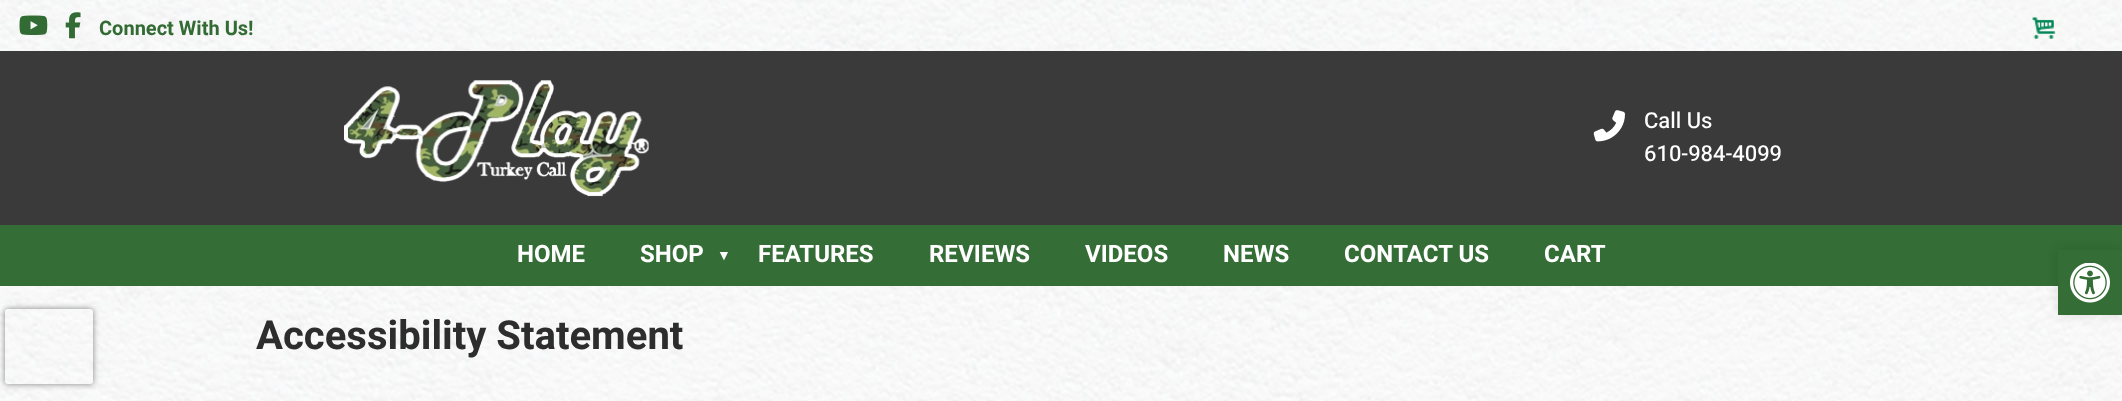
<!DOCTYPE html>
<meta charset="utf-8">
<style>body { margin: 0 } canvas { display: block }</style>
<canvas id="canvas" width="2122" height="401"></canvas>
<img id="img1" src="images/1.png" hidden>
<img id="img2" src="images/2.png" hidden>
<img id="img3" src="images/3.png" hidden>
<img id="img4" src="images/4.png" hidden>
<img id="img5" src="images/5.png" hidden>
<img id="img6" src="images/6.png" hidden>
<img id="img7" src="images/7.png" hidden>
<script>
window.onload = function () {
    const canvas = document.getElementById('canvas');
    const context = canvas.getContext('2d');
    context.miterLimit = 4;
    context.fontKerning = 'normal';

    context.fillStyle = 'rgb(255, 255, 255)';
    context.fillRect(0, 0, 2122, 401);
    context.drawImage(document.getElementById('img1'), 0, 0, 2122, 401);
    context.drawImage(document.getElementById('img2'), 19, 15, 29, 20);
    context.drawImage(document.getElementById('img3'), 65, 12, 16, 27);
    context.drawImage(document.getElementById('img4'), 2032, 17, 24, 22);
    context.fillStyle = 'rgb(58, 58, 58)';
    context.fillRect(0, 51, 2122, 174);
    context.drawImage(document.getElementById('img5'), 344, 80, 305, 117);
    context.drawImage(document.getElementById('img6'), 1593, 110, 32, 32);
    context.fillStyle = 'rgb(52, 109, 53)';
    context.fillRect(0, 225, 2122, 61);
    context.fillStyle = 'rgba(0, 0, 0, 0.1)';
    context.filter = 'blur(6px)';
    context.beginPath();
    context.rect(2058, 250, 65, 65);
    context.fill();
    context.filter = 'none';
    context.fillStyle = 'rgb(52, 109, 53)';
    context.fillRect(2058, 250, 64, 65);
    context.drawImage(document.getElementById('img7'), 2070, 263, 40, 40);
    context.save();
    context.beginPath();
    context.moveTo(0, 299);
    context.lineTo(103, 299);
    context.lineTo(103, 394);
    context.lineTo(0, 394);
    context.closePath();
    context.moveTo(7.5, 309);
    context.lineTo(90.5, 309);
    context.bezierCurveTo(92, 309, 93, 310, 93, 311.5);
    context.lineTo(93, 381.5);
    context.bezierCurveTo(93, 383, 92, 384, 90.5, 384);
    context.lineTo(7.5, 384);
    context.bezierCurveTo(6, 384, 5, 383, 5, 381.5);
    context.lineTo(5, 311.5);
    context.bezierCurveTo(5, 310, 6, 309, 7.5, 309);
    context.closePath();
    context.clip('evenodd');
    context.fillStyle = 'rgb(128, 128, 128)';
    context.filter = 'blur(3px)';
    context.beginPath();
    context.roundRect(5, 309, 88, 75, 2.5);
    context.fill();
    context.filter = 'none';
    context.restore();
    context.font = 'bold 20px Heebo';
    context.fillStyle = 'rgb(50, 107, 51)';
    context.fillText('Connect With Us!', 99, 35);
    context.font = '500 22px Heebo';
    context.fillStyle = 'rgb(255, 255, 255)';
    context.fillText('Call Us', 1644, 128);
    context.fillText('610-984-4099', 1644, 161);
    context.font = 'bold 24px Heebo';
    context.fillText('HOME', 517, 262);
    context.fillText('SHOP', 640, 262);
    context.font = 'bold 14px Liberation Sans';
    context.fillText('▼', 717, 260);
    context.font = 'bold 24px Heebo';
    context.fillText('FEATURES', 758, 262);
    context.fillText('REVIEWS', 929, 262);
    context.fillText('VIDEOS', 1085, 262);
    context.fillText('NEWS', 1223, 262);
    context.fillText('CONTACT US', 1344, 262);
    context.fillText('CART', 1544, 262);
    context.font = 'bold 40px Heebo';
    context.fillStyle = 'rgb(45, 45, 45)';
    context.fillText('Accessibility Statement', 256, 349);
};
</script>
